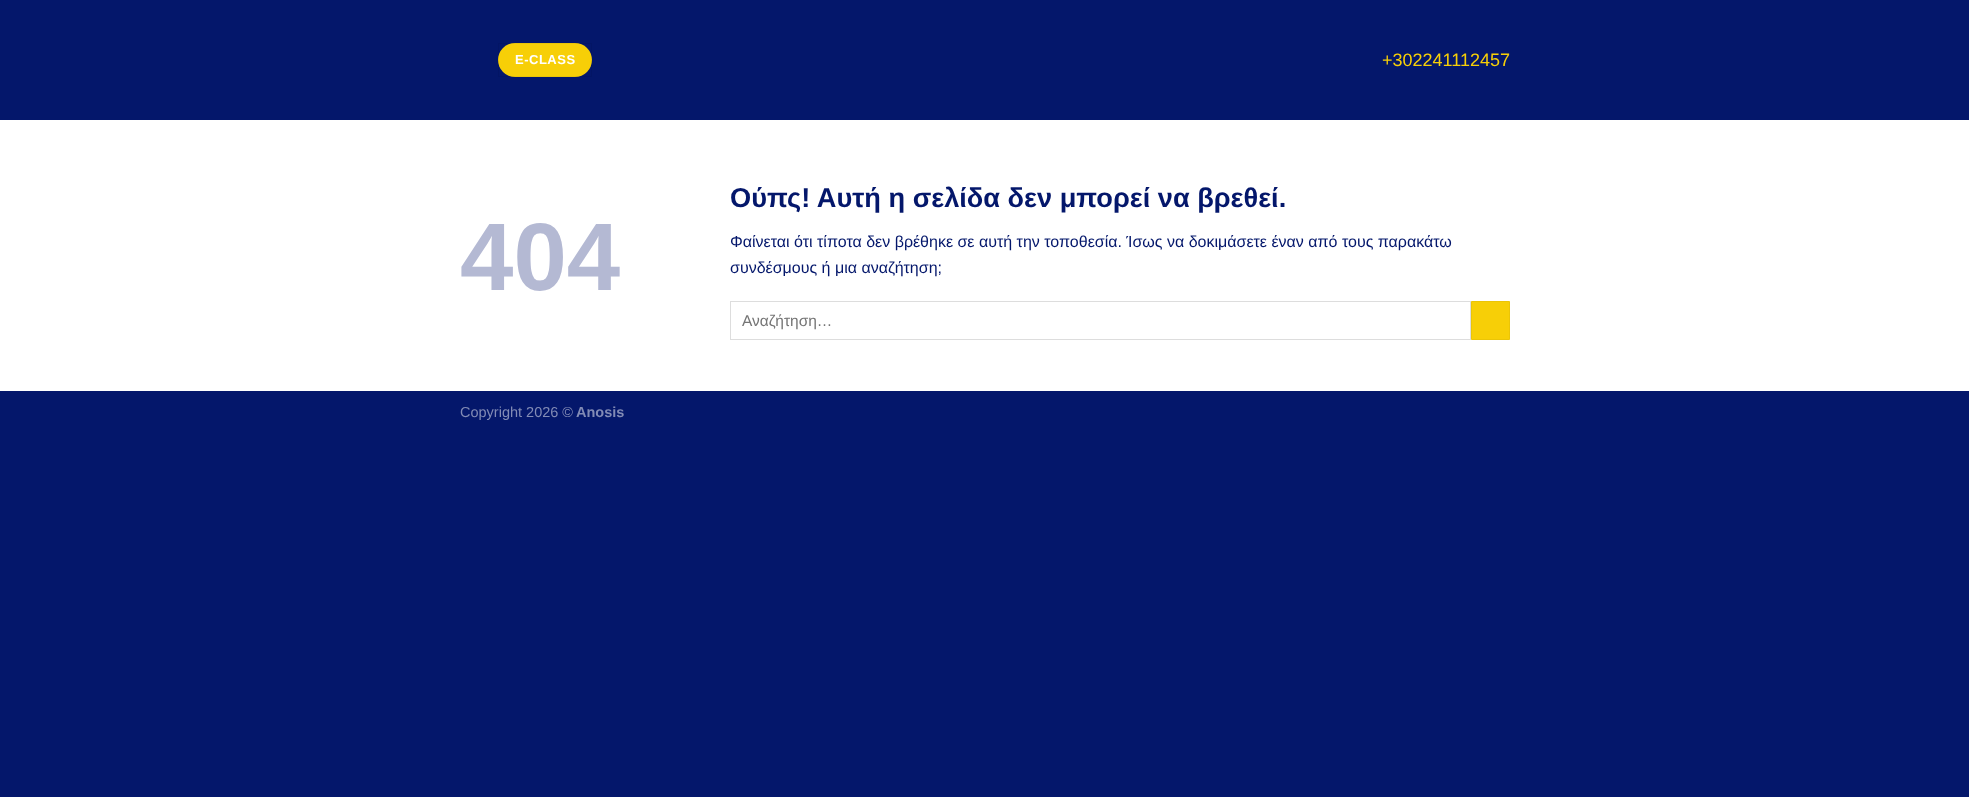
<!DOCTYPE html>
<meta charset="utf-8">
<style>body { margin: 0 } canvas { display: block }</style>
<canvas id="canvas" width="1969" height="797"></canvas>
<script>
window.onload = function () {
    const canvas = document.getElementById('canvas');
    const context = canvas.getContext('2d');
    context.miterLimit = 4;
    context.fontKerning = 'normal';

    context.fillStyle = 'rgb(4, 23, 107)';
    context.fillRect(0, 0, 1969, 797);
    context.fillStyle = 'rgb(255, 255, 255)';
    context.fillRect(0, 120, 1969, 271);
    context.fillStyle = 'rgb(247, 207, 7)';
    context.beginPath();
    context.roundRect(498, 43, 94, 34, 17);
    context.fill();
    context.strokeStyle = 'rgba(0, 0, 0, 0.05)';
    context.strokeRect(498.5, 43.5, 93, 33);
    context.strokeStyle = 'rgb(221, 221, 221)';
    context.strokeRect(730.5, 301.5, 740, 38);
    context.beginPath();
    context.rect(1471.5, 301.5, 38, 38);
    context.fill();
    context.strokeStyle = 'rgb(235, 197, 7)';
    context.stroke();
    context.letterSpacing = '0.5px';
    context.font = 'bold 13px Liberation Sans';
    context.fillStyle = 'rgb(255, 255, 255)';
    context.fillText('E-CLASS', 515, 64);
    context.letterSpacing = '0px';
    context.font = '18px Liberation Sans';
    context.fillStyle = 'rgb(247, 207, 7)';
    context.fillText('+302241112457', 1382, 66);
    context.font = 'bold 96px Liberation Sans';
    context.fillStyle = 'rgb(180, 185, 211)';
    context.fillText('404', 460, 290);
    context.font = 'bold 27.2px Liberation Sans';
    context.fillStyle = 'rgb(4, 23, 107)';
    context.fillText('Ούπς! Αυτή η σελίδα δεν μπορεί να βρεθεί.', 730, 207);
    context.font = '16px Liberation Sans';
    context.fillText('Φαίνεται ότι τίποτα δεν βρέθηκε σε αυτή την τοποθεσία. Ίσως να δοκιμάσετε έναν από τους παρακάτω', 730, 247);
    context.fillText('συνδέσμους ή μια αναζήτηση;', 730, 273);
    context.font = '15.5px Liberation Sans';
    context.fillStyle = 'rgb(117, 117, 117)';
    context.fillText('Αναζήτηση…', 742, 326);
    context.font = '14.5px Liberation Sans';
    context.fillStyle = 'rgb(130, 139, 181)';
    context.fillText('Copyright 2026 ©', 460, 417);
    context.font = 'bold 14.5px Liberation Sans';
    context.fillText('Anosis', 576, 417);
};
</script>
